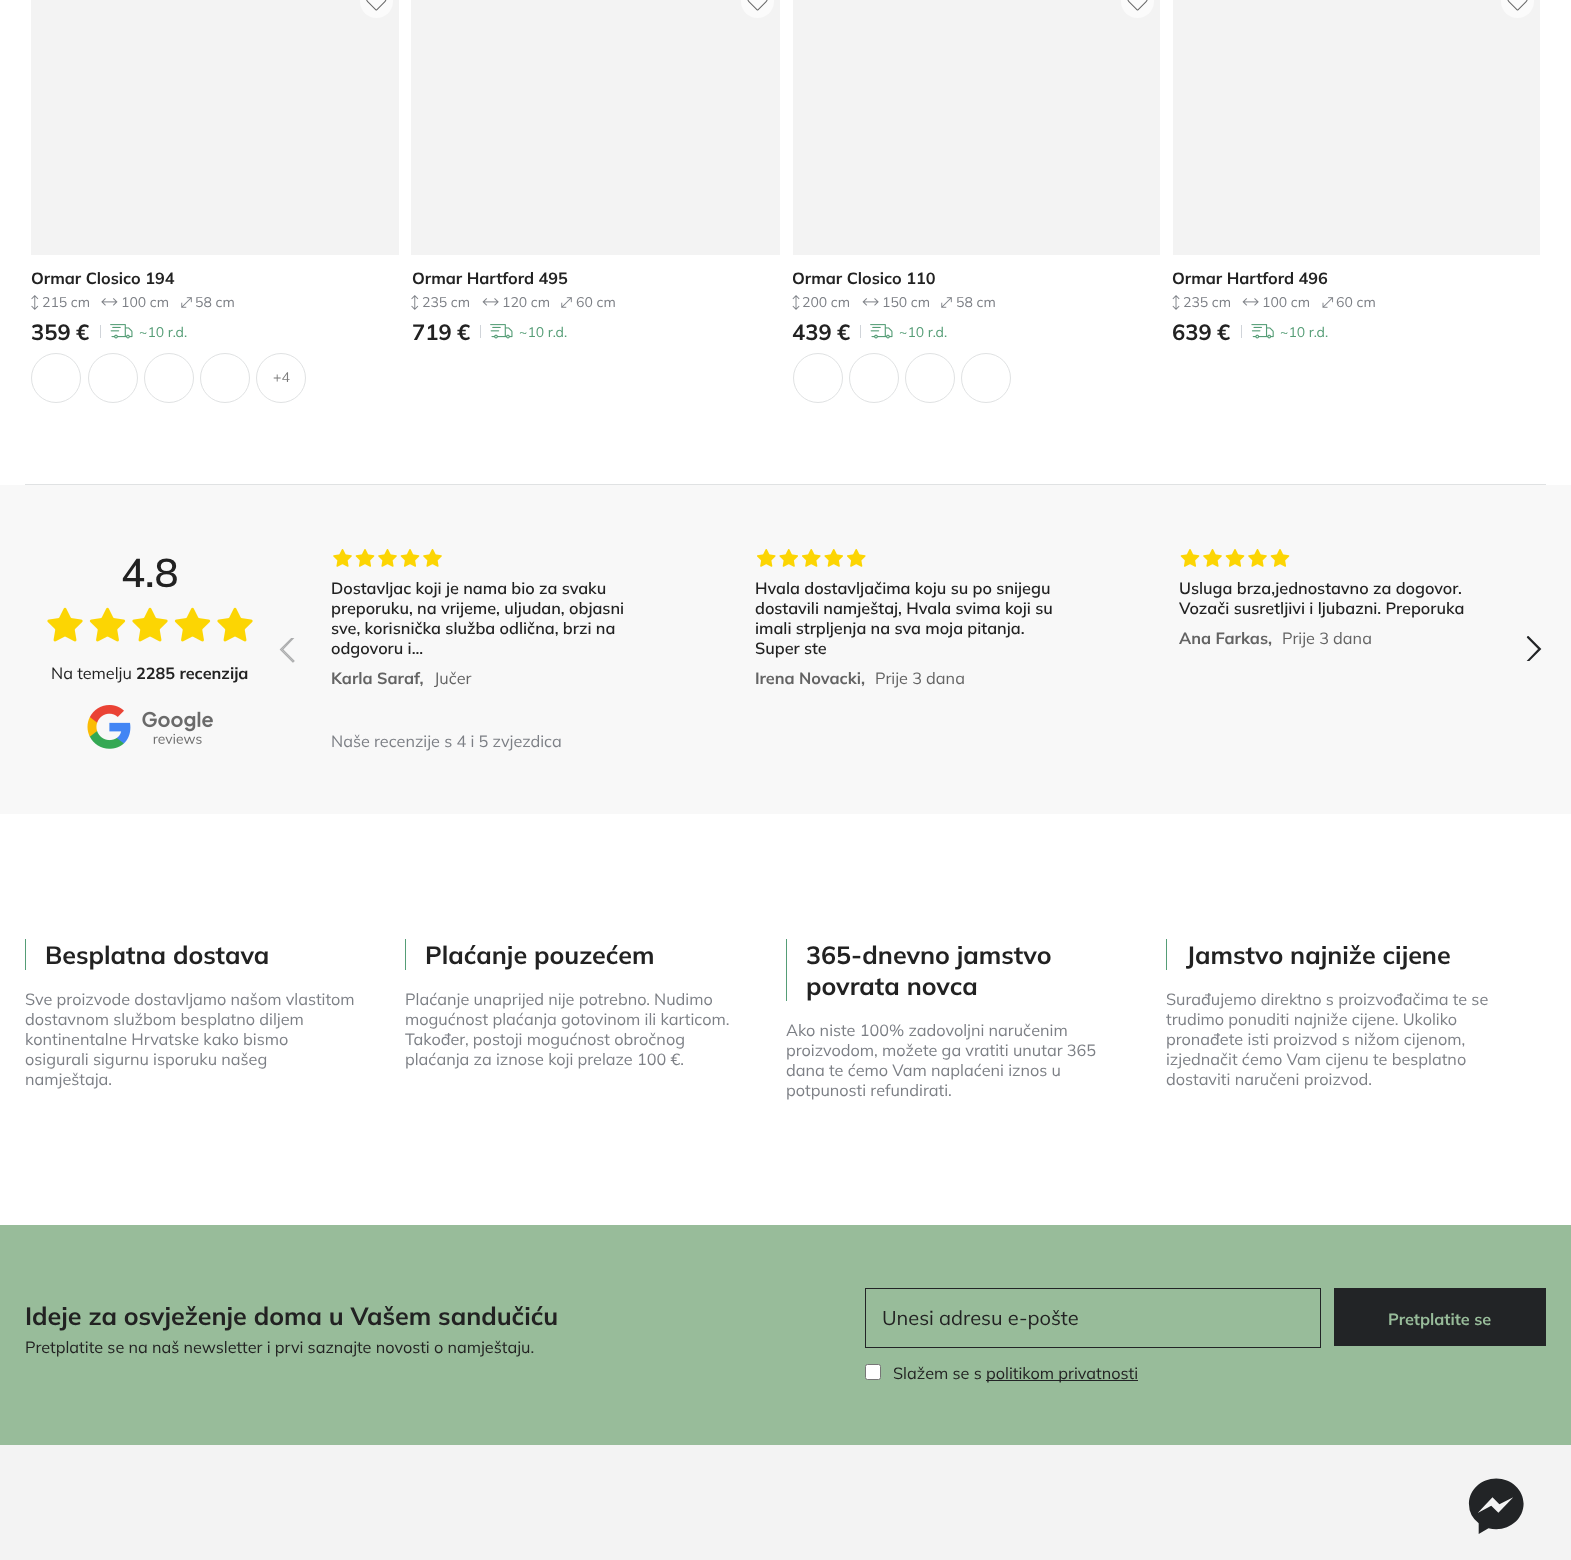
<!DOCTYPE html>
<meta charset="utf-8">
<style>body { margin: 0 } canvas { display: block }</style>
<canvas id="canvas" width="1571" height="1560"></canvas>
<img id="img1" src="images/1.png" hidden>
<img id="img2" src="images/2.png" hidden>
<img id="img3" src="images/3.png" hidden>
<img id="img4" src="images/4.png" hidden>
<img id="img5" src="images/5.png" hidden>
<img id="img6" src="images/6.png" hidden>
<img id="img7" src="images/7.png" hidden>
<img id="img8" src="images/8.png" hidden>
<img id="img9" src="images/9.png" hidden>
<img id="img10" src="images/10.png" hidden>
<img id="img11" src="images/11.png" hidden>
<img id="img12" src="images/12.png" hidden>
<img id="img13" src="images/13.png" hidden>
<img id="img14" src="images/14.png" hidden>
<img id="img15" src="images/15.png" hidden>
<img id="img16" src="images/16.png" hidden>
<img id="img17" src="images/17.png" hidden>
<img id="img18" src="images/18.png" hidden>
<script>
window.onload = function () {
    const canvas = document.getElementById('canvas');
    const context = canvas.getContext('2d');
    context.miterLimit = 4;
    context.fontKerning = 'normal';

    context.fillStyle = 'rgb(255, 255, 255)';
    context.fillRect(0, 0, 1571, 1560);
    context.fillStyle = 'rgb(224, 226, 227)';
    context.fillRect(25, 484, 1521, 1);
    context.fillStyle = 'rgb(243, 243, 243)';
    context.fillRect(31, 0, 368, 255);
    context.fillStyle = 'rgb(251, 251, 251)';
    context.beginPath();
    context.arc(376.5, 1.5, 16.5, 0, 2 * Math.PI);
    context.fill();
    context.drawImage(document.getElementById('img1'), 366, 0, 21, 11);
    context.drawImage(document.getElementById('img2'), 31, 295, 8, 15);
    context.drawImage(document.getElementById('img3'), 101, 298, 17, 8);
    context.drawImage(document.getElementById('img4'), 181, 297, 11, 11);
    context.fillStyle = 'rgb(208, 212, 217)';
    context.fillRect(100, 325, 1, 13);
    context.drawImage(document.getElementById('img5'), 110, 324, 23, 15);
    context.beginPath();
    context.arc(56, 378, 24.5, 0, 2 * Math.PI);
    context.strokeStyle = 'rgb(224, 226, 227)';
    context.stroke();
    context.beginPath();
    context.arc(113, 378, 24.5, 0, 2 * Math.PI);
    context.stroke();
    context.beginPath();
    context.arc(169, 378, 24.5, 0, 2 * Math.PI);
    context.stroke();
    context.beginPath();
    context.arc(225, 378, 24.5, 0, 2 * Math.PI);
    context.stroke();
    context.beginPath();
    context.arc(281, 378, 24.5, 0, 2 * Math.PI);
    context.stroke();
    context.fillStyle = 'rgb(243, 243, 243)';
    context.fillRect(411, 0, 369, 255);
    context.fillStyle = 'rgb(251, 251, 251)';
    context.beginPath();
    context.arc(757.5, 1.5, 16.5, 0, 2 * Math.PI);
    context.fill();
    context.drawImage(document.getElementById('img6'), 747, 0, 21, 11);
    context.drawImage(document.getElementById('img2'), 411, 295, 8, 15);
    context.drawImage(document.getElementById('img7'), 482, 298, 17, 8);
    context.drawImage(document.getElementById('img4'), 561, 297, 11, 11);
    context.fillStyle = 'rgb(208, 212, 217)';
    context.fillRect(480, 325, 1, 13);
    context.drawImage(document.getElementById('img5'), 490, 324, 23, 15);
    context.fillStyle = 'rgb(243, 243, 243)';
    context.fillRect(793, 0, 367, 255);
    context.fillStyle = 'rgb(251, 251, 251)';
    context.beginPath();
    context.arc(1137.5, 1.5, 16.5, 0, 2 * Math.PI);
    context.fill();
    context.drawImage(document.getElementById('img6'), 1127, 0, 21, 11);
    context.drawImage(document.getElementById('img8'), 792, 295, 8, 15);
    context.drawImage(document.getElementById('img7'), 862, 298, 17, 8);
    context.drawImage(document.getElementById('img4'), 941, 297, 11, 11);
    context.fillStyle = 'rgb(208, 212, 217)';
    context.fillRect(860, 325, 1, 13);
    context.drawImage(document.getElementById('img5'), 870, 324, 23, 15);
    context.beginPath();
    context.arc(818, 378, 24.5, 0, 2 * Math.PI);
    context.stroke();
    context.beginPath();
    context.arc(874, 378, 24.5, 0, 2 * Math.PI);
    context.stroke();
    context.beginPath();
    context.arc(930, 378, 24.5, 0, 2 * Math.PI);
    context.stroke();
    context.beginPath();
    context.arc(986, 378, 24.5, 0, 2 * Math.PI);
    context.stroke();
    context.fillStyle = 'rgb(243, 243, 243)';
    context.fillRect(1173, 0, 367, 255);
    context.fillStyle = 'rgb(251, 251, 251)';
    context.beginPath();
    context.arc(1517.5, 1.5, 16.5, 0, 2 * Math.PI);
    context.fill();
    context.drawImage(document.getElementById('img6'), 1507, 0, 21, 11);
    context.drawImage(document.getElementById('img8'), 1172, 295, 8, 15);
    context.drawImage(document.getElementById('img7'), 1242, 298, 17, 8);
    context.drawImage(document.getElementById('img9'), 1322, 297, 12, 11);
    context.fillStyle = 'rgb(208, 212, 217)';
    context.fillRect(1241, 325, 1, 13);
    context.drawImage(document.getElementById('img10'), 1251, 324, 23, 15);
    context.fillStyle = 'rgb(243, 243, 243)';
    context.fillRect(0, 1445, 1571, 115);
    context.fillStyle = 'rgb(248, 248, 248)';
    context.fillRect(0, 485, 1571, 329);
    context.drawImage(document.getElementById('img11'), 47, 607, 36, 35);
    context.drawImage(document.getElementById('img12'), 89, 607, 37, 35);
    context.drawImage(document.getElementById('img11'), 132, 607, 36, 35);
    context.drawImage(document.getElementById('img12'), 174, 607, 37, 35);
    context.drawImage(document.getElementById('img11'), 217, 607, 36, 35);
    context.drawImage(document.getElementById('img13'), 87, 705, 126, 44);
    context.save();
    context.beginPath();
    context.rect(275, 638, 25, 25);
    context.clip();
    context.beginPath();
    context.moveTo(293, 662);
    context.lineTo(280.5, 649.5);
    context.lineTo(293, 637);
    context.lineTo(294, 637.5);
    context.lineTo(282.5, 649.5);
    context.lineTo(294, 661);
    context.closePath();
    context.strokeStyle = 'rgb(173, 174, 175)';
    context.lineWidth = 1.2;
    context.stroke();
    context.restore();
    context.drawImage(document.getElementById('img14'), 333, 549, 19, 18);
    context.drawImage(document.getElementById('img15'), 355, 549, 20, 18);
    context.drawImage(document.getElementById('img14'), 378, 549, 19, 18);
    context.drawImage(document.getElementById('img15'), 400, 549, 20, 18);
    context.drawImage(document.getElementById('img14'), 423, 549, 19, 18);
    context.drawImage(document.getElementById('img16'), 757, 549, 19, 18);
    context.drawImage(document.getElementById('img17'), 779, 549, 19, 18);
    context.drawImage(document.getElementById('img16'), 802, 549, 19, 18);
    context.drawImage(document.getElementById('img17'), 824, 549, 19, 18);
    context.drawImage(document.getElementById('img16'), 847, 549, 19, 18);
    context.drawImage(document.getElementById('img15'), 1180, 549, 20, 18);
    context.drawImage(document.getElementById('img14'), 1203, 549, 19, 18);
    context.drawImage(document.getElementById('img15'), 1225, 549, 20, 18);
    context.drawImage(document.getElementById('img14'), 1248, 549, 19, 18);
    context.drawImage(document.getElementById('img15'), 1270, 549, 20, 18);
    context.save();
    context.beginPath();
    context.rect(1521, 636, 25, 25);
    context.clip();
    context.beginPath();
    context.moveTo(1528, 636.5);
    context.lineTo(1540.5, 649);
    context.lineTo(1528, 661.5);
    context.lineTo(1527.5, 661);
    context.lineTo(1539, 649);
    context.lineTo(1527.5, 637.5);
    context.closePath();
    context.strokeStyle = 'rgb(34, 36, 38)';
    context.lineWidth = 1.2;
    context.stroke();
    context.restore();
    context.fillStyle = 'rgb(85, 157, 118)';
    context.fillRect(25, 939, 1, 31);
    context.fillRect(405, 939, 1, 31);
    context.fillRect(786, 939, 1, 62);
    context.fillRect(1166, 939, 1, 31);
    context.fillStyle = 'rgb(152, 188, 154)';
    context.fillRect(0, 1225, 1571, 220);
    context.strokeStyle = 'rgb(34, 36, 38)';
    context.strokeRect(865.5, 1288.5, 455, 59);
    context.fillStyle = 'rgb(255, 255, 255)';
    context.beginPath();
    context.roundRect(865.5, 1364.5, 15, 15, 2);
    context.fill();
    context.strokeStyle = 'rgb(118, 118, 118)';
    context.stroke();
    context.fillStyle = 'rgb(34, 36, 38)';
    context.fillRect(986, 1380, 152, 1);
    context.fillRect(1334, 1288, 212, 58);
    context.drawImage(document.getElementById('img18'), 1468, 1478, 56, 56);
    context.font = 'bold 16.25px Mulish';
    context.fillStyle = 'rgb(34, 34, 34)';
    context.fillText('Ormar Closico 194', 31, 284);
    context.font = '14px Mulish';
    context.fillStyle = 'rgb(124, 127, 133)';
    context.fillText('215 cm', 42, 307);
    context.fillText('100 cm', 121, 307);
    context.fillText('58 cm', 195, 307);
    context.font = 'bold 22px Mulish';
    context.fillStyle = 'rgb(34, 34, 34)';
    context.fillText('359', 31, 340);
    context.fillText('€', 76, 340);
    context.font = '14px Mulish';
    context.fillStyle = 'rgb(85, 157, 118)';
    context.fillText('~10 r.d.', 139, 337);
    context.fillStyle = 'rgb(123, 123, 123)';
    context.fillText('+4', 273, 382);
    context.font = 'bold 16.25px Mulish';
    context.fillStyle = 'rgb(34, 34, 34)';
    context.fillText('Ormar Hartford 495', 412, 284);
    context.font = '14px Mulish';
    context.fillStyle = 'rgb(124, 127, 133)';
    context.fillText('235 cm', 422, 307);
    context.fillText('120 cm', 502, 307);
    context.fillText('60 cm', 576, 307);
    context.font = 'bold 22px Mulish';
    context.fillStyle = 'rgb(34, 34, 34)';
    context.fillText('719', 412, 340);
    context.fillText('€', 457, 340);
    context.font = '14px Mulish';
    context.fillStyle = 'rgb(85, 157, 118)';
    context.fillText('~10 r.d.', 519, 337);
    context.save();
    context.beginPath();
    context.rect(793, 268, 367, 20);
    context.clip();
    context.font = 'bold 16.25px Mulish';
    context.fillStyle = 'rgb(34, 34, 34)';
    context.fillText('Ormar Closico 110', 792, 284);
    context.restore();
    context.fillStyle = 'rgb(124, 127, 133)';
    context.fillText('200 cm', 802, 307);
    context.fillText('150 cm', 882, 307);
    context.fillText('58 cm', 956, 307);
    context.font = 'bold 22px Mulish';
    context.fillStyle = 'rgb(34, 34, 34)';
    context.fillText('439', 792, 340);
    context.fillText('€', 837, 340);
    context.font = '14px Mulish';
    context.fillStyle = 'rgb(85, 157, 118)';
    context.fillText('~10 r.d.', 899, 337);
    context.font = 'bold 16.25px Mulish';
    context.fillStyle = 'rgb(34, 34, 34)';
    context.fillText('Ormar Hartford 496', 1172, 284);
    context.font = '14px Mulish';
    context.fillStyle = 'rgb(124, 127, 133)';
    context.fillText('235 cm', 1183, 307);
    context.fillText('100 cm', 1262, 307);
    context.fillText('60 cm', 1336, 307);
    context.font = 'bold 22px Mulish';
    context.fillStyle = 'rgb(34, 34, 34)';
    context.fillText('639', 1172, 340);
    context.fillText('€', 1217, 340);
    context.font = '14px Mulish';
    context.fillStyle = 'rgb(85, 157, 118)';
    context.fillText('~10 r.d.', 1280, 337);
    context.font = '600 40px Mulish';
    context.fillStyle = 'rgb(34, 34, 34)';
    context.fillText('4.8', 121, 587);
    context.font = '16.25px Mulish';
    context.fillText('Na temelju', 51, 679);
    context.font = 'bold 16.25px Mulish';
    context.fillText('2285 recenzija', 136, 679);
    context.font = '600 16.25px Mulish';
    context.fillText('Dostavljac koji je nama bio za svaku', 331, 594);
    context.fillText('preporuku, na vrijeme, uljudan, objasni', 331, 614);
    context.fillText('sve, korisnička služba odlična, brzi na', 331, 634);
    context.fillText('odgovoru i...', 331, 654);
    context.font = 'bold 16.25px Mulish';
    context.fillStyle = 'rgb(99, 99, 99)';
    context.fillText('Karla Saraf,', 331, 684);
    context.font = '16.25px Mulish';
    context.fillText('Jučer', 434, 684);
    context.font = '600 16.25px Mulish';
    context.fillStyle = 'rgb(34, 34, 34)';
    context.fillText('Hvala dostavljačima koju su po snijegu', 755, 594);
    context.fillText('dostavili namještaj, Hvala svima koji su', 755, 614);
    context.fillText('imali strpljenja na sva moja pitanja.', 755, 634);
    context.fillText('Super ste', 755, 654);
    context.font = 'bold 16.25px Mulish';
    context.fillStyle = 'rgb(99, 99, 99)';
    context.fillText('Irena Novacki,', 755, 684);
    context.font = '16.25px Mulish';
    context.fillText('Prije 3 dana', 875, 684);
    context.font = '600 16.25px Mulish';
    context.fillStyle = 'rgb(34, 34, 34)';
    context.fillText('Usluga brza,jednostavno za dogovor.', 1179, 594);
    context.fillText('Vozači susretljivi i ljubazni. Preporuka', 1179, 614);
    context.font = 'bold 16.25px Mulish';
    context.fillStyle = 'rgb(99, 99, 99)';
    context.fillText('Ana Farkas,', 1179, 644);
    context.font = '16.25px Mulish';
    context.fillText('Prije 3 dana', 1282, 644);
    context.fillStyle = 'rgb(124, 127, 133)';
    context.fillText('Naše recenzije s 4 i 5 zvjezdica', 331, 747);
    context.font = 'bold 25px Mulish';
    context.fillStyle = 'rgb(34, 34, 34)';
    context.fillText('Besplatna dostava', 45, 964);
    context.font = '16.25px Mulish';
    context.fillStyle = 'rgb(124, 127, 133)';
    context.fillText('Sve proizvode dostavljamo našom vlastitom', 25, 1005);
    context.fillText('dostavnom službom besplatno diljem', 25, 1025);
    context.fillText('kontinentalne Hrvatske kako bismo', 25, 1045);
    context.fillText('osigurali sigurnu isporuku našeg', 25, 1065);
    context.fillText('namještaja.', 25, 1085);
    context.font = 'bold 25px Mulish';
    context.fillStyle = 'rgb(34, 34, 34)';
    context.fillText('Plaćanje pouzećem', 425, 964);
    context.font = '16.25px Mulish';
    context.fillStyle = 'rgb(124, 127, 133)';
    context.fillText('Plaćanje unaprijed nije potrebno. Nudimo', 405, 1005);
    context.fillText('mogućnost plaćanja gotovinom ili karticom.', 405, 1025);
    context.fillText('Također, postoji mogućnost obročnog', 405, 1045);
    context.fillText('plaćanja za iznose koji prelaze 100 €.', 405, 1065);
    context.font = 'bold 25px Mulish';
    context.fillStyle = 'rgb(34, 34, 34)';
    context.fillText('365-dnevno jamstvo', 806, 964);
    context.fillText('povrata novca', 806, 995);
    context.font = '16.25px Mulish';
    context.fillStyle = 'rgb(124, 127, 133)';
    context.fillText('Ako niste 100% zadovoljni naručenim', 786, 1036);
    context.fillText('proizvodom, možete ga vratiti unutar 365', 786, 1056);
    context.fillText('dana te ćemo Vam naplaćeni iznos u', 786, 1076);
    context.fillText('potpunosti refundirati.', 786, 1096);
    context.font = 'bold 25px Mulish';
    context.fillStyle = 'rgb(34, 34, 34)';
    context.fillText('Jamstvo najniže cijene', 1186, 964);
    context.font = '16.25px Mulish';
    context.fillStyle = 'rgb(124, 127, 133)';
    context.fillText('Surađujemo direktno s proizvođačima te se', 1166, 1005);
    context.fillText('trudimo ponuditi najniže cijene. Ukoliko', 1166, 1025);
    context.fillText('pronađete isti proizvod s nižom cijenom,', 1166, 1045);
    context.fillText('izjednačit ćemo Vam cijenu te besplatno', 1166, 1065);
    context.fillText('dostaviti naručeni proizvod.', 1166, 1085);
    context.font = 'bold 25px Mulish';
    context.fillStyle = 'rgb(34, 34, 34)';
    context.fillText('Ideje za osvježenje doma u Vašem sandučiću', 25, 1325);
    context.font = '16.25px Mulish';
    context.fillText('Pretplatite se na naš newsletter i prvi saznajte novosti o namještaju.', 25, 1353);
    context.font = '20px Mulish';
    context.fillText('Unesi adresu e-pošte', 882, 1325);
    context.font = '16.25px Mulish';
    context.fillText('Slažem se s', 893, 1379);
    context.fillText('politikom privatnosti', 986, 1379);
    context.font = 'bold 16.25px Mulish';
    context.fillStyle = 'rgb(152, 188, 154)';
    context.fillText('Pretplatite se', 1388, 1325);
};
</script>
